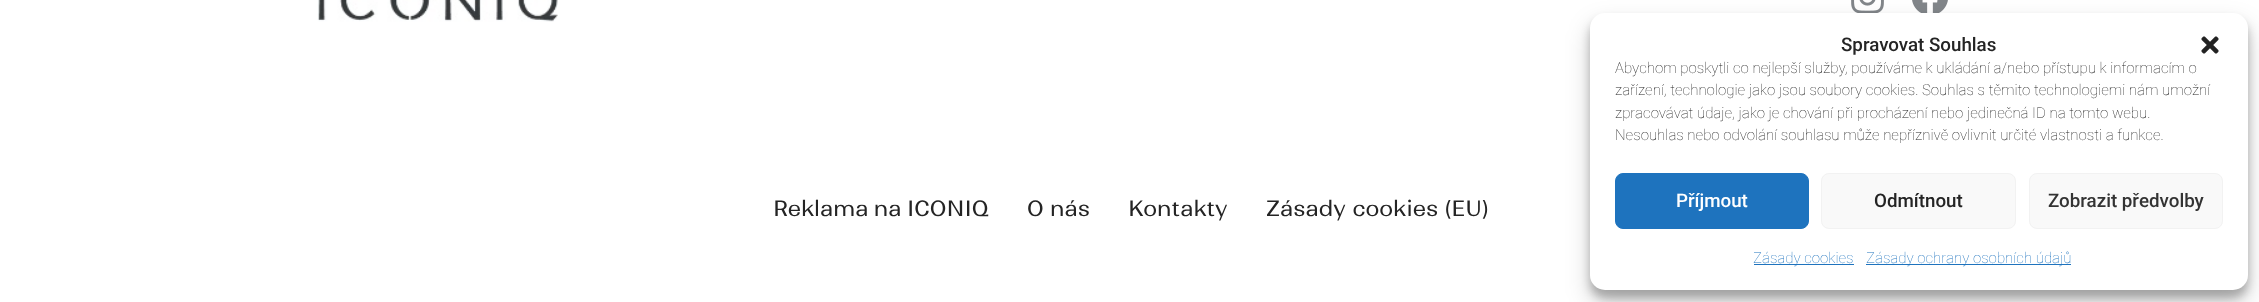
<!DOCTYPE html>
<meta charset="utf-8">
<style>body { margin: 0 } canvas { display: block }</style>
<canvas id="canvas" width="2259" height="302"></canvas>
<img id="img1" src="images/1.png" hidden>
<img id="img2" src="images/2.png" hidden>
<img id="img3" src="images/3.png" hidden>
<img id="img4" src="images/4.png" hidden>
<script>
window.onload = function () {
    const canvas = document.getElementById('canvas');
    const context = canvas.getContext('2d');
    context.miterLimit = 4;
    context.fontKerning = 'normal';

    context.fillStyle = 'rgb(255, 255, 255)';
    context.fillRect(0, 0, 2259, 302);
    context.drawImage(document.getElementById('img1'), 317, 0, 241, 22);
    context.drawImage(document.getElementById('img2'), 1851, 0, 33, 13);
    context.drawImage(document.getElementById('img3'), 1912, 0, 36, 13);
    context.fillStyle = 'rgba(0, 0, 0, 0.23)';
    context.filter = 'blur(4px)';
    context.beginPath();
    context.roundRect(1590, 20, 658, 278, 15);
    context.fill();
    context.filter = 'none';
    context.fillStyle = 'rgba(0, 0, 0, 0.19)';
    context.filter = 'blur(12.5px)';
    context.beginPath();
    context.roundRect(1590, 25, 658, 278, 15);
    context.fill();
    context.filter = 'none';
    context.fillStyle = 'rgb(255, 255, 255)';
    context.beginPath();
    context.roundRect(1590, 13, 658, 277, 15);
    context.fill();
    context.drawImage(document.getElementById('img4'), 2201, 36, 18, 18);
    context.fillStyle = 'rgb(30, 115, 190)';
    context.beginPath();
    context.roundRect(1615.5, 173.5, 193, 55, 7.5);
    context.fill();
    context.strokeStyle = 'rgb(30, 115, 190)';
    context.stroke();
    context.fillStyle = 'rgb(249, 249, 249)';
    context.beginPath();
    context.roundRect(1821.5, 173.5, 194, 55, 7.5);
    context.fill();
    context.strokeStyle = 'rgb(242, 242, 242)';
    context.stroke();
    context.beginPath();
    context.roundRect(2029.5, 173.5, 193, 55, 7.5);
    context.fill();
    context.stroke();
    context.fillStyle = 'rgb(30, 115, 190)';
    context.fillRect(1754, 264, 100, 1);
    context.fillRect(1866, 264, 205, 1);
    context.wordSpacing = '-1px';
    context.font = '21.25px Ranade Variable';
    context.fillStyle = 'rgb(36, 36, 36)';
    context.fillText('Reklama na ICONIQ', 773, 216);
    context.wordSpacing = '0px';
    context.fillText('O nás', 1027, 216);
    context.fillText('Kontakty', 1128, 216);
    context.fillText('Zásady cookies (EU)', 1266, 216);
    context.font = '500 18.75px Roboto';
    context.fillText('Spravovat Souhlas', 1841, 51);
    context.font = '100 15px Roboto';
    context.fillText('Abychom poskytli co nejlepší služby, používáme k ukládání a/nebo přístupu k informacím o', 1615, 73);
    context.fillText('zařízení, technologie jako jsou soubory cookies. Souhlas s těmito technologiemi nám umožní', 1615, 95);
    context.fillText('zpracovávat údaje, jako je chování při procházení nebo jedinečná ID na tomto webu.', 1615, 118);
    context.fillText('Nesouhlas nebo odvolání souhlasu může nepříznivě ovlivnit určité vlastnosti a funkce.', 1615, 140);
    context.font = '500 18.75px Roboto';
    context.fillStyle = 'rgb(255, 255, 255)';
    context.fillText('Příjmout', 1676, 207);
    context.fillStyle = 'rgb(36, 36, 36)';
    context.fillText('Odmítnout', 1874, 207);
    context.fillStyle = 'rgb(51, 51, 51)';
    context.fillText('Zobrazit předvolby', 2048, 207);
    context.font = '100 15px Roboto';
    context.fillStyle = 'rgb(30, 115, 190)';
    context.fillText('Zásady cookies', 1753, 263);
    context.fillText('Zásady ochrany osobních údajů', 1866, 263);
};
</script>
